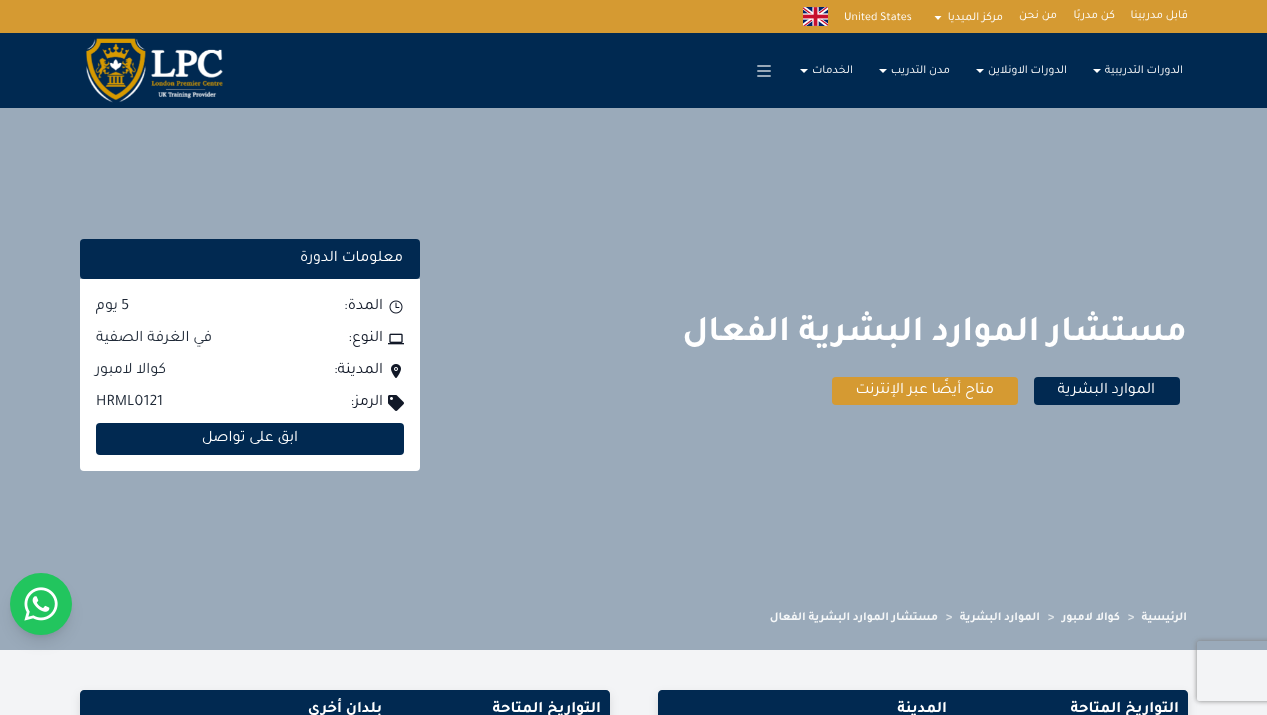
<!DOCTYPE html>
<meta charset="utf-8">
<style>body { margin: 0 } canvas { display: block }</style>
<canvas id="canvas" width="1267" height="715"></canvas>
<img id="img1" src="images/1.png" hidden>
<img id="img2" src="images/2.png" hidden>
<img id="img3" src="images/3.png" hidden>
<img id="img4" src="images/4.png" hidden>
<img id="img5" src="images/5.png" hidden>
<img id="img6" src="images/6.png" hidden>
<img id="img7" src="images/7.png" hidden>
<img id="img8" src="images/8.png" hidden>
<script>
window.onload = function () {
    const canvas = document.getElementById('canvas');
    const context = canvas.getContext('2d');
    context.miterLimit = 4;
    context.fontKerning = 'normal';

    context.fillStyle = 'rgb(154, 170, 186)';
    context.fillRect(0, 0, 1267, 715);
    context.fillStyle = 'rgb(213, 154, 50)';
    context.fillRect(0, 0, 1267, 33);
    context.fillStyle = 'rgb(255, 255, 255)';
    context.beginPath();
    context.moveTo(934.5, 16);
    context.lineTo(938, 20);
    context.lineTo(941.5, 16);
    context.closePath();
    context.fill();
    context.drawImage(document.getElementById('img1'), 803, 7, 25, 19);
    context.fillStyle = 'rgb(0, 41, 81)';
    context.fillRect(0, 33, 1267, 75);
    context.fillStyle = 'rgb(255, 255, 255)';
    context.beginPath();
    context.moveTo(1093, 69);
    context.lineTo(1097, 73);
    context.lineTo(1101, 69);
    context.closePath();
    context.fill();
    context.beginPath();
    context.moveTo(976, 69);
    context.lineTo(980, 73);
    context.lineTo(984, 69);
    context.closePath();
    context.fill();
    context.beginPath();
    context.moveTo(879, 69);
    context.lineTo(883, 73);
    context.lineTo(887, 69);
    context.closePath();
    context.fill();
    context.beginPath();
    context.moveTo(800, 69);
    context.lineTo(804, 73);
    context.lineTo(808, 69);
    context.closePath();
    context.fill();
    context.drawImage(document.getElementById('img2'), 757, 65, 14, 12);
    context.drawImage(document.getElementById('img3'), 86, 38, 137, 65);
    context.fillStyle = 'rgb(243, 244, 246)';
    context.fillRect(0, 650, 1267, 65);
    context.save();
    context.beginPath();
    context.moveTo(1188, 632);
    context.lineTo(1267, 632);
    context.lineTo(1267, 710);
    context.lineTo(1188, 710);
    context.closePath();
    context.moveTo(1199, 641);
    context.lineTo(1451, 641);
    context.bezierCurveTo(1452, 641, 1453, 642, 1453, 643);
    context.lineTo(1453, 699);
    context.bezierCurveTo(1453, 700, 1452, 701, 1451, 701);
    context.lineTo(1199, 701);
    context.bezierCurveTo(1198, 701, 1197, 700, 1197, 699);
    context.lineTo(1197, 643);
    context.bezierCurveTo(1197, 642, 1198, 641, 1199, 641);
    context.closePath();
    context.clip('evenodd');
    context.fillStyle = 'rgb(128, 128, 128)';
    context.filter = 'blur(2.5px)';
    context.beginPath();
    context.roundRect(1197, 641, 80, 60, 2);
    context.fill();
    context.filter = 'none';
    context.restore();
    context.fillStyle = 'rgb(1, 41, 81)';
    context.beginPath();
    context.roundRect(1034, 377, 146, 28, 4);
    context.fill();
    context.fillStyle = 'rgb(213, 154, 50)';
    context.beginPath();
    context.roundRect(832, 377, 186, 28, 4);
    context.fill();
    context.fillStyle = 'rgb(1, 41, 81)';
    context.beginPath();
    context.roundRect(80, 239, 340, 40, 4);
    context.fill();
    context.fillStyle = 'rgb(255, 255, 255)';
    context.beginPath();
    context.roundRect(80, 279, 340, 192, [0, 0, 4, 4]);
    context.fill();
    context.drawImage(document.getElementById('img4'), 389, 300, 14, 14);
    context.drawImage(document.getElementById('img5'), 388, 333, 16, 12);
    context.drawImage(document.getElementById('img6'), 391, 364, 10, 14);
    context.drawImage(document.getElementById('img7'), 388, 395, 16, 16);
    context.fillStyle = 'rgb(1, 41, 81)';
    context.beginPath();
    context.roundRect(96, 423, 308, 32, 4);
    context.fill();
    context.fillStyle = 'rgba(0, 0, 0, 0.1)';
    context.filter = 'blur(5px)';
    context.beginPath();
    context.roundRect(658, 694, 530, 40, 4);
    context.fill();
    context.filter = 'none';
    context.fillStyle = 'rgb(1, 41, 81)';
    context.beginPath();
    context.moveTo(662, 690);
    context.lineTo(1184, 690);
    context.bezierCurveTo(1186, 690, 1188, 692, 1188, 694);
    context.lineTo(1188, 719);
    context.lineTo(658, 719);
    context.lineTo(658, 694);
    context.bezierCurveTo(658, 692, 660, 690, 662, 690);
    context.closePath();
    context.fill();
    context.fillStyle = 'rgba(0, 0, 0, 0.1)';
    context.filter = 'blur(5px)';
    context.beginPath();
    context.roundRect(80, 694, 530, 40, 4);
    context.fill();
    context.filter = 'none';
    context.fillStyle = 'rgb(1, 41, 81)';
    context.beginPath();
    context.moveTo(84, 690);
    context.lineTo(606, 690);
    context.bezierCurveTo(608, 690, 610, 692, 610, 694);
    context.lineTo(610, 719);
    context.lineTo(80, 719);
    context.lineTo(80, 694);
    context.bezierCurveTo(80, 692, 82, 690, 84, 690);
    context.closePath();
    context.fill();
    context.fillStyle = 'rgba(0, 0, 0, 0.1)';
    context.filter = 'blur(3px)';
    context.beginPath();
    context.roundRect(14, 581, 54, 54, 27);
    context.fill();
    context.filter = 'none';
    context.filter = 'blur(7.5px)';
    context.beginPath();
    context.roundRect(13, 586, 56, 56, 28);
    context.fill();
    context.filter = 'none';
    context.fillStyle = 'rgb(34, 197, 94)';
    context.beginPath();
    context.arc(41, 604, 31, 0, 2 * Math.PI);
    context.fill();
    context.drawImage(document.getElementById('img8'), 24, 587, 34, 34);
    context.direction = 'rtl';
    context.font = '12px Tajawal';
    context.fillStyle = 'rgb(255, 255, 255)';
    context.fillText('قابل مدربينا', 1188, 18);
    context.fillText('كن مدربًا', 1115, 18);
    context.fillText('من نحن', 1057, 18);
    context.fillText('مركز الميديا', 1003, 20);
    context.direction = 'ltr';
    context.fillText('United States', 844, 20);
    context.direction = 'rtl';
    context.fillText('الدورات التدريبية', 1183, 73);
    context.fillText('الدورات الاونلاين', 1067, 73);
    context.fillText('مدن التدريب', 950, 73);
    context.fillText('الخدمات', 853, 73);
    context.font = 'bold 36px Tajawal';
    context.fillText('مستشار الموارد البشرية الفعال', 1187, 340);
    context.font = '16px Tajawal';
    context.fillText('الموارد البشرية', 1155, 393);
    context.fillText('متاح أيضًا عبر الإنترنت', 994, 393);
    context.fillText('معلومات الدورة', 403, 261);
    context.fillStyle = 'rgb(17, 24, 39)';
    context.fillText('المدة:', 383, 309);
    context.direction = 'ltr';
    context.fillStyle = 'rgb(31, 41, 55)';
    context.fillText('5', 121, 309);
    context.direction = 'rtl';
    context.fillText('يوم', 118, 309);
    context.fillStyle = 'rgb(17, 24, 39)';
    context.fillText('النوع:', 383, 341);
    context.fillStyle = 'rgb(31, 41, 55)';
    context.fillText('في الغرفة الصفية', 212, 341);
    context.fillStyle = 'rgb(17, 24, 39)';
    context.fillText('المدينة:', 383, 373);
    context.fillStyle = 'rgb(31, 41, 55)';
    context.fillText('كوالا لامبور', 166, 373);
    context.fillStyle = 'rgb(17, 24, 39)';
    context.fillText('الرمز:', 383, 405);
    context.direction = 'ltr';
    context.fillStyle = 'rgb(31, 41, 55)';
    context.fillText('HRML0121', 96, 405);
    context.direction = 'rtl';
    context.fillStyle = 'rgb(255, 255, 255)';
    context.fillText('ابق على تواصل', 298, 441);
    context.font = 'bold 12px Tajawal';
    context.fillStyle = 'rgb(245, 247, 248)';
    context.fillText('الرئيسية', 1187, 620);
    context.direction = 'ltr';
    context.fillStyle = 'rgb(225, 230, 234)';
    context.fillText('>', 1128, 620);
    context.direction = 'rtl';
    context.fillStyle = 'rgb(245, 247, 248)';
    context.fillText('كوالا لامبور', 1120, 620);
    context.direction = 'ltr';
    context.fillStyle = 'rgb(225, 230, 234)';
    context.fillText('>', 1048, 620);
    context.direction = 'rtl';
    context.fillStyle = 'rgb(245, 247, 248)';
    context.fillText('الموارد البشرية', 1040, 620);
    context.direction = 'ltr';
    context.fillStyle = 'rgb(225, 230, 234)';
    context.fillText('>', 946, 620);
    context.direction = 'rtl';
    context.fillStyle = 'rgb(245, 247, 248)';
    context.fillText('مستشار الموارد البشرية الفعال', 938, 620);
    context.font = 'bold 16px Tajawal';
    context.fillStyle = 'rgb(255, 255, 255)';
    context.fillText('التواريخ المتاحة', 1179, 712);
    context.fillText('المدينة', 947, 712);
    context.fillText('التواريخ المتاحة', 601, 712);
    context.fillText('بلدان أخرى', 382, 712);
};
</script>
